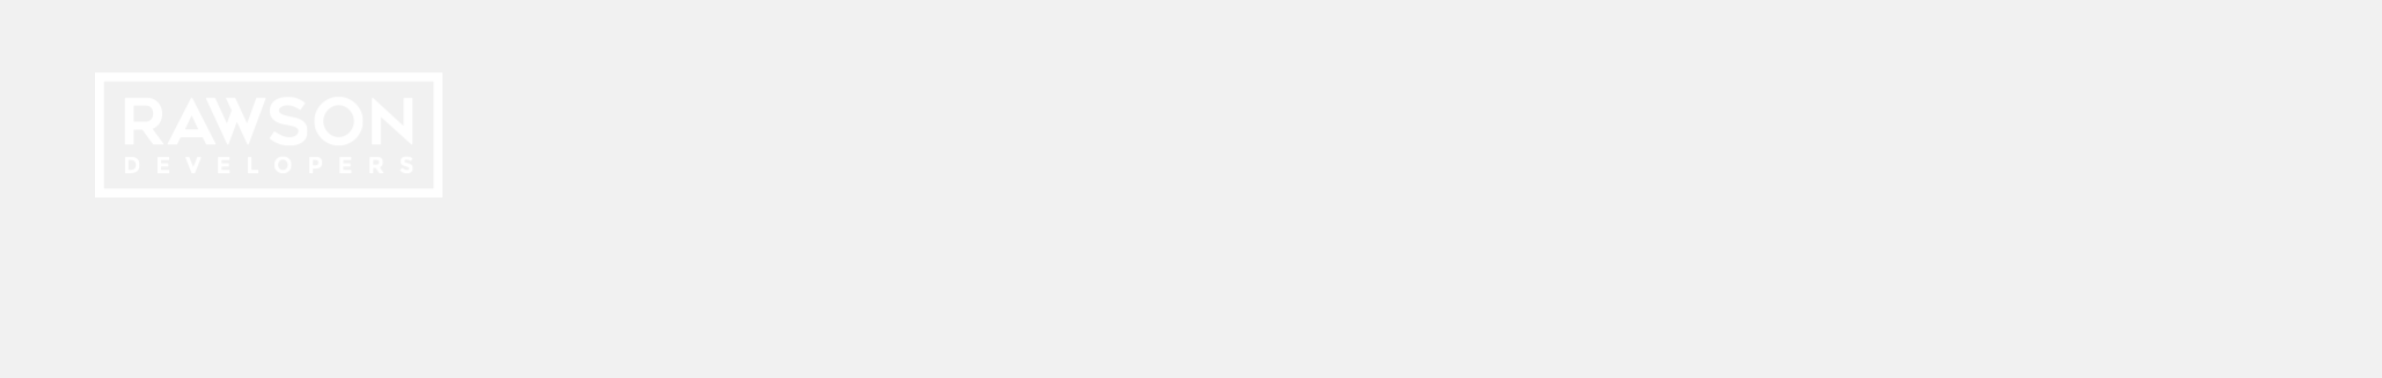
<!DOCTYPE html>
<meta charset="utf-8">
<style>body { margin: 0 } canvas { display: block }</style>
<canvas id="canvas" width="2382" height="378"></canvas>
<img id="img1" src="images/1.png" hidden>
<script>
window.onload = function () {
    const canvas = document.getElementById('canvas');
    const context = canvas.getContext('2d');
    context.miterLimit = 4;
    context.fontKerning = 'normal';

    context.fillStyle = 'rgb(241, 241, 241)';
    context.fillRect(0, 0, 2382, 378);
    context.drawImage(document.getElementById('img1'), 95, 72, 348, 126);
};
</script>
